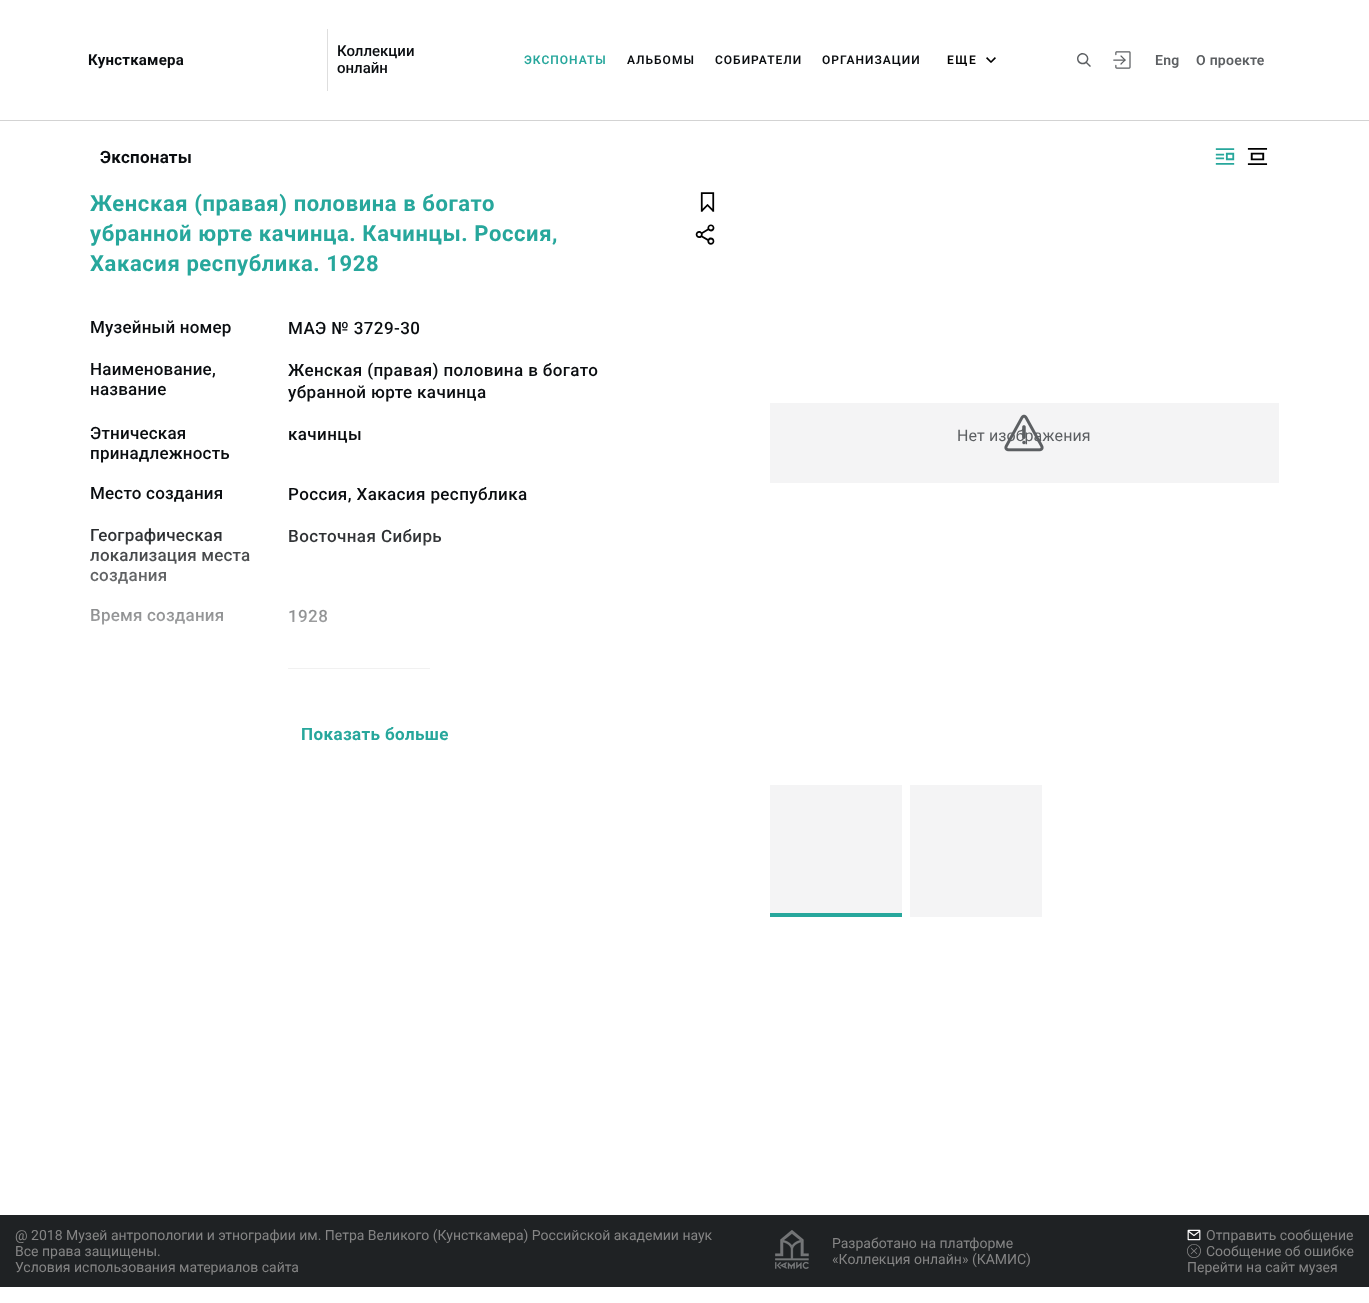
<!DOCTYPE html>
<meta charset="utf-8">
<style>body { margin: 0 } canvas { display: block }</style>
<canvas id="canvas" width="1369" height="1303"></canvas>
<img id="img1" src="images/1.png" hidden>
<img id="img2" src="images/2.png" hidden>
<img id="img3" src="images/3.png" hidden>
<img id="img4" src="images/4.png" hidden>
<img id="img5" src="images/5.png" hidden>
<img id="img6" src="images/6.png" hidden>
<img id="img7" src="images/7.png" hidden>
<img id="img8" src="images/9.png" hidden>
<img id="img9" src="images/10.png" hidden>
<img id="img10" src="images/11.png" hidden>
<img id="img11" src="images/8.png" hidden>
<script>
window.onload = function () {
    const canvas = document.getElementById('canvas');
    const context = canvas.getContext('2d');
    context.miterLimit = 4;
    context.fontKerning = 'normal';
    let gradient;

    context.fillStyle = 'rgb(255, 255, 255)';
    context.fillRect(0, 0, 1369, 1303);
    context.fillStyle = 'rgb(211, 211, 211)';
    context.fillRect(0, 120, 1369, 1);
    context.fillStyle = 'rgb(222, 222, 222)';
    context.fillRect(327, 29, 1, 62);
    context.drawImage(document.getElementById('img1'), 986, 57, 10, 6);
    context.drawImage(document.getElementById('img2'), 1077, 53, 14, 14);
    context.drawImage(document.getElementById('img3'), 1113, 51, 18, 18);
    context.drawImage(document.getElementById('img4'), 1215, 148, 20, 17);
    context.drawImage(document.getElementById('img5'), 1247, 148, 21, 17);
    context.drawImage(document.getElementById('img6'), 700, 192, 15, 20);
    context.drawImage(document.getElementById('img7'), 695, 224, 20, 21);
    context.fillStyle = 'rgb(172, 172, 172)';
    context.fillRect(288, 668, 142, 1);
    context.fillStyle = 'rgb(244, 244, 245)';
    context.fillRect(770, 403, 509, 80);
    context.fillRect(770, 785, 132, 128);
    context.fillStyle = 'rgb(39, 167, 156)';
    context.fillRect(770, 913, 132, 4);
    context.fillStyle = 'rgb(244, 244, 245)';
    context.fillRect(910, 785, 132, 132);
    context.fillStyle = 'rgb(31, 34, 36)';
    context.fillRect(0, 1215, 1369, 72);
    context.drawImage(document.getElementById('img8'), 775, 1230, 34, 39);
    context.drawImage(document.getElementById('img9'), 1187, 1229, 14, 12);
    context.drawImage(document.getElementById('img10'), 1187, 1244, 14, 14);
    context.letterSpacing = '0.25px';
    context.font = 'bold 15px Roboto';
    context.fillStyle = 'rgb(10, 13, 16)';
    context.fillText('Кунсткамера', 88, 65);
    context.letterSpacing = '0px';
    context.font = '500 15px Roboto';
    context.fillText('Коллекции', 337, 56);
    context.fillText('онлайн', 337, 73);
    context.letterSpacing = '1px';
    context.font = '600 12px Roboto';
    context.fillStyle = 'rgb(39, 167, 156)';
    context.fillText('ЭКСПОНАТЫ', 524, 64);
    context.fillStyle = 'rgb(10, 13, 16)';
    context.fillText('АЛЬБОМЫ', 627, 64);
    context.fillText('СОБИРАТЕЛИ', 715, 64);
    context.fillText('ОРГАНИЗАЦИИ', 822, 64);
    context.letterSpacing = '1.5px';
    context.fillStyle = 'rgb(0, 0, 0)';
    context.fillText('ЕЩЕ', 947, 64);
    context.letterSpacing = '0.25px';
    context.font = '600 14px Roboto';
    context.fillStyle = 'rgb(92, 95, 98)';
    context.fillText('Eng', 1155, 65);
    context.fillText('О проекте', 1196, 65);
    context.font = 'bold 17px Roboto';
    context.fillStyle = 'rgb(10, 13, 16)';
    context.fillText('Экспонаты', 100, 163);
    context.letterSpacing = '0.6px';
    context.font = 'bold 22px Roboto';
    context.fillStyle = 'rgb(39, 167, 156)';
    context.fillText('Женская (правая) половина в богато', 90, 211);
    context.fillText('убранной юрте качинца. Качинцы. Россия,', 90, 241);
    context.fillText('Хакасия республика. 1928', 90, 271);
    context.letterSpacing = '0.2px';
    context.font = '500 17px Roboto';
    context.fillStyle = 'rgb(10, 13, 16)';
    context.fillText('Музейный номер', 90, 333);
    context.letterSpacing = '0.4px';
    context.fillText('МАЭ № 3729-30', 288, 334);
    context.letterSpacing = '0.2px';
    context.fillText('Наименование,', 90, 375);
    context.fillText('название', 90, 395);
    context.letterSpacing = '0.4px';
    context.fillText('Женская (правая) половина в богато', 288, 376);
    context.fillText('убранной юрте качинца', 288, 398);
    context.letterSpacing = '0.2px';
    context.fillText('Этническая', 90, 439);
    context.fillText('принадлежность', 90, 459);
    context.letterSpacing = '0.4px';
    context.fillText('качинцы', 288, 440);
    context.letterSpacing = '0.2px';
    context.fillText('Место создания', 90, 499);
    context.letterSpacing = '0.4px';
    context.fillText('Россия, Хакасия республика', 288, 500);
    context.letterSpacing = '0.2px';
    context.fillText('Географическая', 90, 541);
    context.fillText('локализация места', 90, 561);
    context.fillText('создания', 90, 581);
    context.letterSpacing = '0.4px';
    context.fillText('Восточная Сибирь', 288, 542);
    context.letterSpacing = '0.2px';
    context.fillText('Время создания', 90, 621);
    context.letterSpacing = '0.4px';
    context.fillText('1928', 288, 622);
    gradient = context.createLinearGradient(376, 509, 376, 749);
    gradient.addColorStop(0, 'rgba(255, 255, 255, 0.01)');
    gradient.addColorStop(0.8, 'rgb(255, 255, 255)');
    context.fillStyle = gradient;
    context.fillRect(90, 528, 352, 141);
    context.font = 'bold 17px Roboto';
    context.fillStyle = 'rgb(39, 167, 156)';
    context.fillText('Показать больше', 301, 740);
    context.letterSpacing = '0.1px';
    context.font = '16px Roboto';
    context.fillStyle = 'rgb(92, 95, 98)';
    context.fillText('Нет изображения', 957, 441);
    context.drawImage(document.getElementById('img11'), 1004, 414, 40, 38);
    context.letterSpacing = '0px';
    context.font = '14px Roboto';
    context.fillStyle = 'rgb(133, 133, 133)';
    context.fillText('@ 2018 Музей антропологии и этнографии им. Петра Великого (Кунсткамера) Российской академии наук', 15, 1240);
    context.fillText('Все права защищены.', 15, 1256);
    context.fillText('Условия использования материалов сайта', 15, 1272);
    context.fillText('Разработано на платформе', 832, 1248);
    context.fillText('«Коллекция онлайн» (КАМИС)', 832, 1264);
    context.fillText('Отправить сообщение', 1206, 1240);
    context.fillText('Сообщение об ошибке', 1206, 1256);
    context.fillText('Перейти на сайт музея', 1187, 1272);
};
</script>
